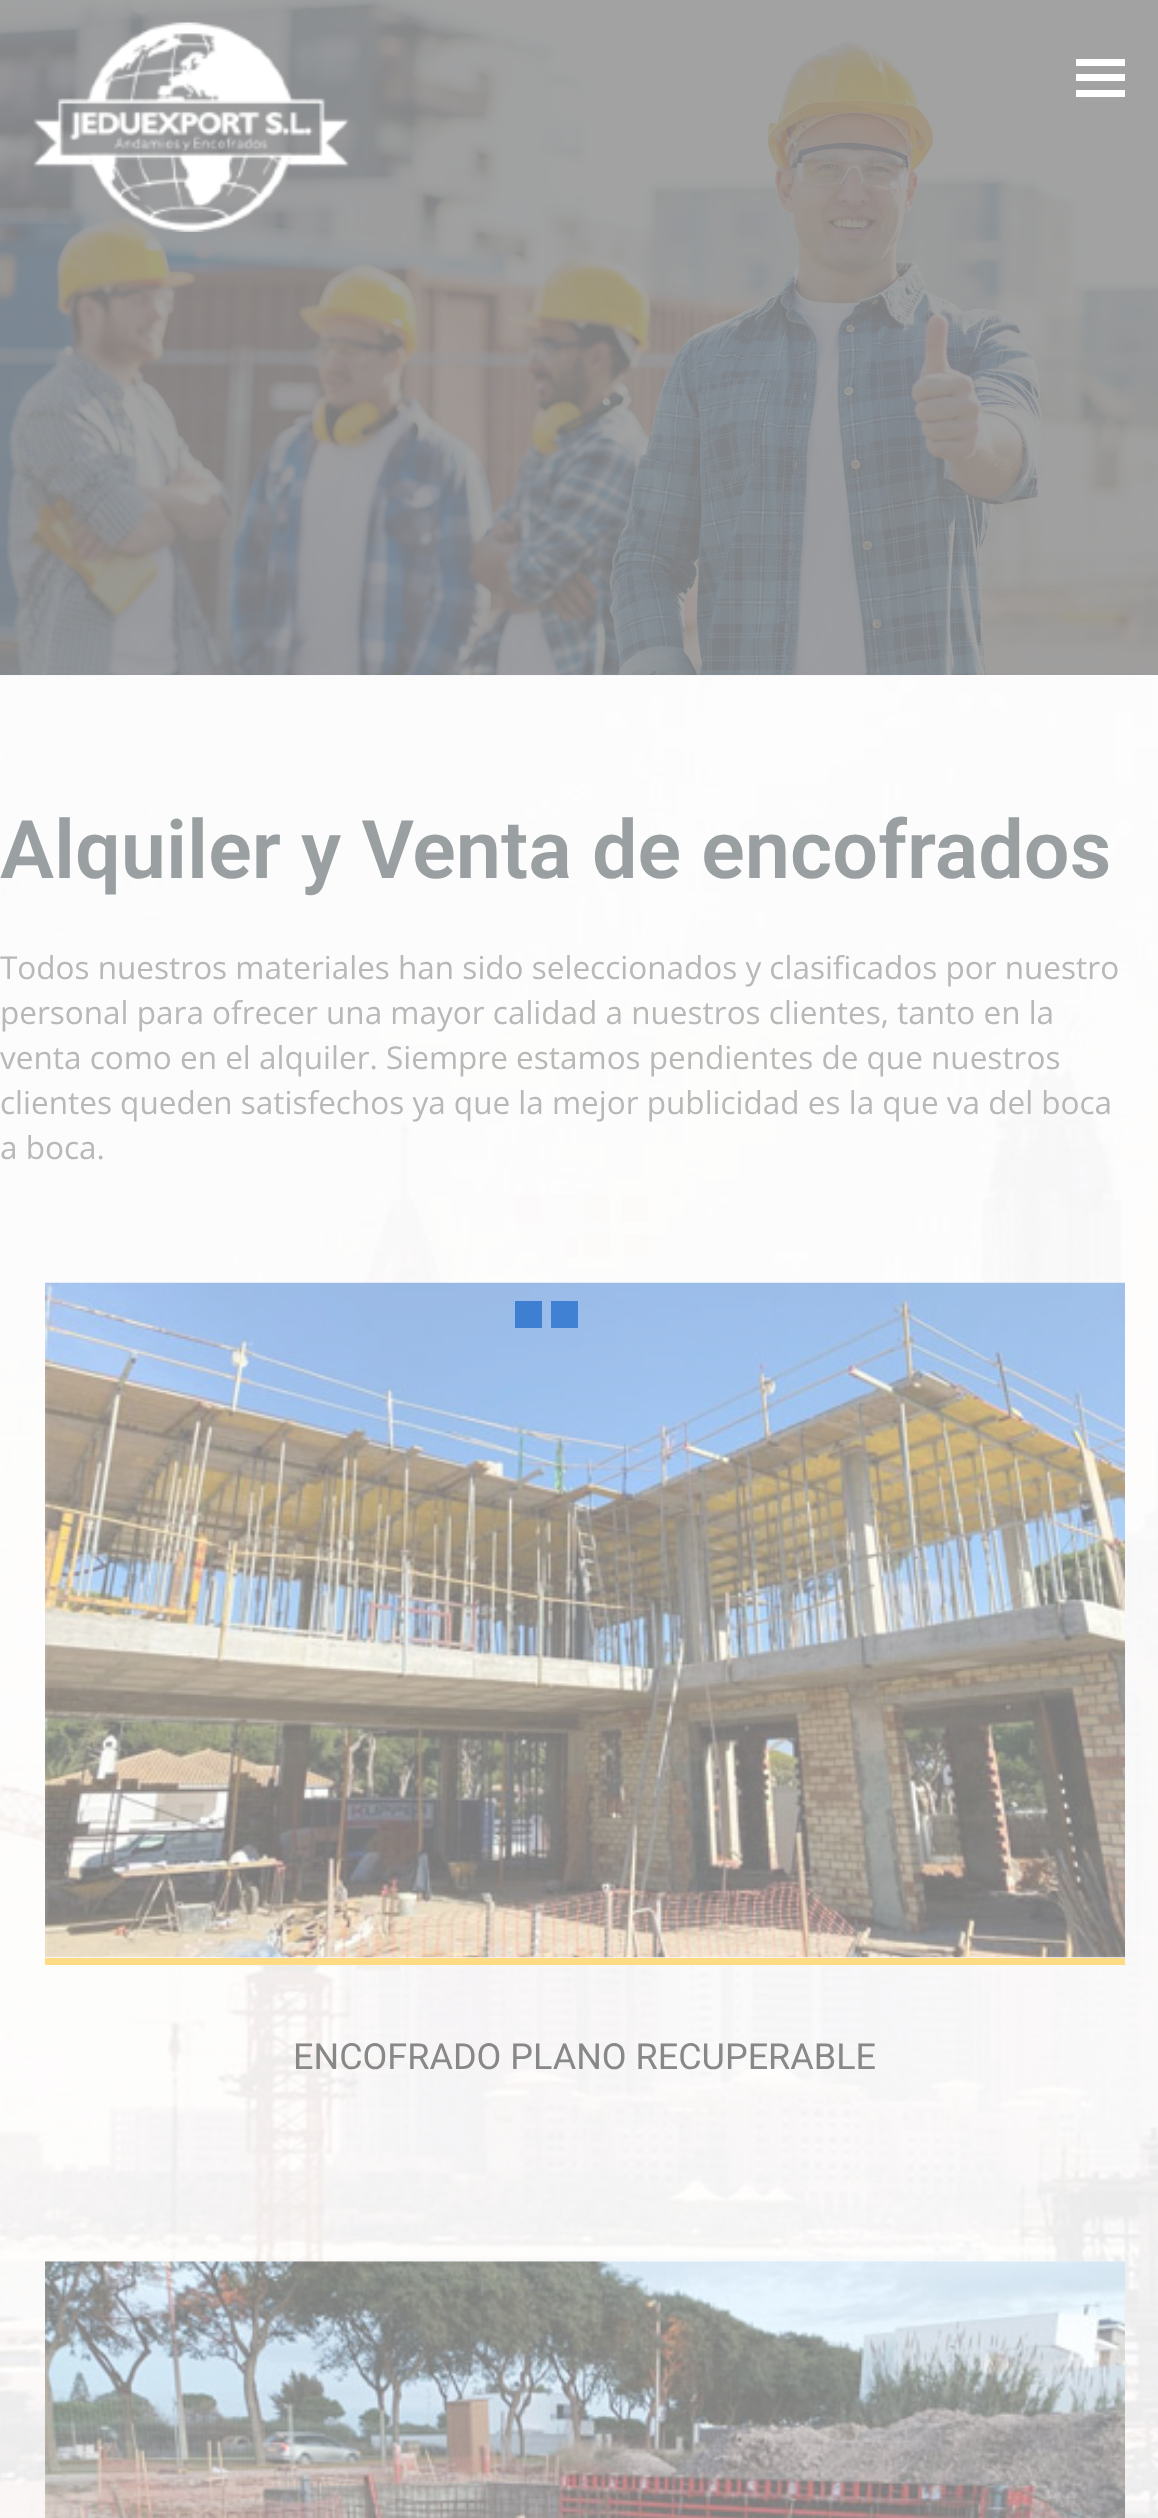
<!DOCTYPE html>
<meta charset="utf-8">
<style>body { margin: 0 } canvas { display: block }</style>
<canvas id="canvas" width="1158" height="2518"></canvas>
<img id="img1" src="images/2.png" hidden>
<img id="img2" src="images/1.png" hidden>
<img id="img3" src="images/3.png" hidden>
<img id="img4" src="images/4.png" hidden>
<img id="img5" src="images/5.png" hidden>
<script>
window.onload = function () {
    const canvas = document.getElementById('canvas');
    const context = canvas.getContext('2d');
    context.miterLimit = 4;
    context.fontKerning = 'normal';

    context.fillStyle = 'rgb(255, 255, 255)';
    context.fillRect(0, 0, 1158, 2518);
    context.drawImage(document.getElementById('img1'), 0, 0, 1158, 675);
    context.drawImage(document.getElementById('img2'), 33, 22, 316, 210);
    context.fillRect(1076, 59, 49, 7);
    context.fillRect(1076, 74, 49, 7);
    context.fillRect(1076, 90, 49, 7);
    context.drawImage(document.getElementById('img3'), 0, 675, 1158, 1843);
    context.fillStyle = 'rgb(255, 220, 132)';
    context.fillRect(45, 1958, 1080, 7);
    context.drawImage(document.getElementById('img4'), 45, 1282, 1080, 676);
    context.drawImage(document.getElementById('img5'), 45, 2261, 1080, 257);
    context.fillStyle = 'rgb(252, 250, 251)';
    context.fillRect(515, 1195, 27, 27);
    context.fillRect(551, 1195, 25, 2);
    context.fillStyle = 'rgb(252, 251, 250)';
    context.fillRect(585, 1195, 24, 27);
    context.fillStyle = 'rgb(252, 251, 249)';
    context.fillRect(621, 1195, 27, 27);
    context.fillStyle = 'rgb(252, 250, 251)';
    context.fillRect(565, 1237, 13, 21);
    context.fillStyle = 'rgb(252, 251, 250)';
    context.fillRect(585, 1231, 26, 26);
    context.fillRect(624, 1234, 24, 24);
    context.fillStyle = 'rgb(63, 127, 210)';
    context.fillRect(515, 1301, 27, 27);
    context.fillStyle = 'rgb(64, 129, 212)';
    context.fillRect(551, 1301, 27, 27);
    context.font = '600 81px Roboto';
    context.fillStyle = 'rgb(154, 159, 161)';
    context.fillText('Alquiler y Venta de encofrados', 0, 878);
    context.font = '31.5px Open Sans';
    context.fillStyle = 'rgb(184, 184, 184)';
    context.fillText('Todos nuestros materiales han sido seleccionados y clasificados por nuestro', 0, 979);
    context.fillText('personal para ofrecer una mayor calidad a nuestros clientes, tanto en la', 0, 1024);
    context.fillText('venta como en el alquiler. Siempre estamos pendientes de que nuestros', 0, 1069);
    context.fillText('clientes queden satisfechos ya que la mejor publicidad es la que va del boca', 0, 1114);
    context.fillText('a boca.', 0, 1159);
    context.font = '36px Roboto';
    context.fillStyle = 'rgb(136, 136, 136)';
    context.fillText('ENCOFRADO PLANO RECUPERABLE', 293, 2069);
};
</script>
